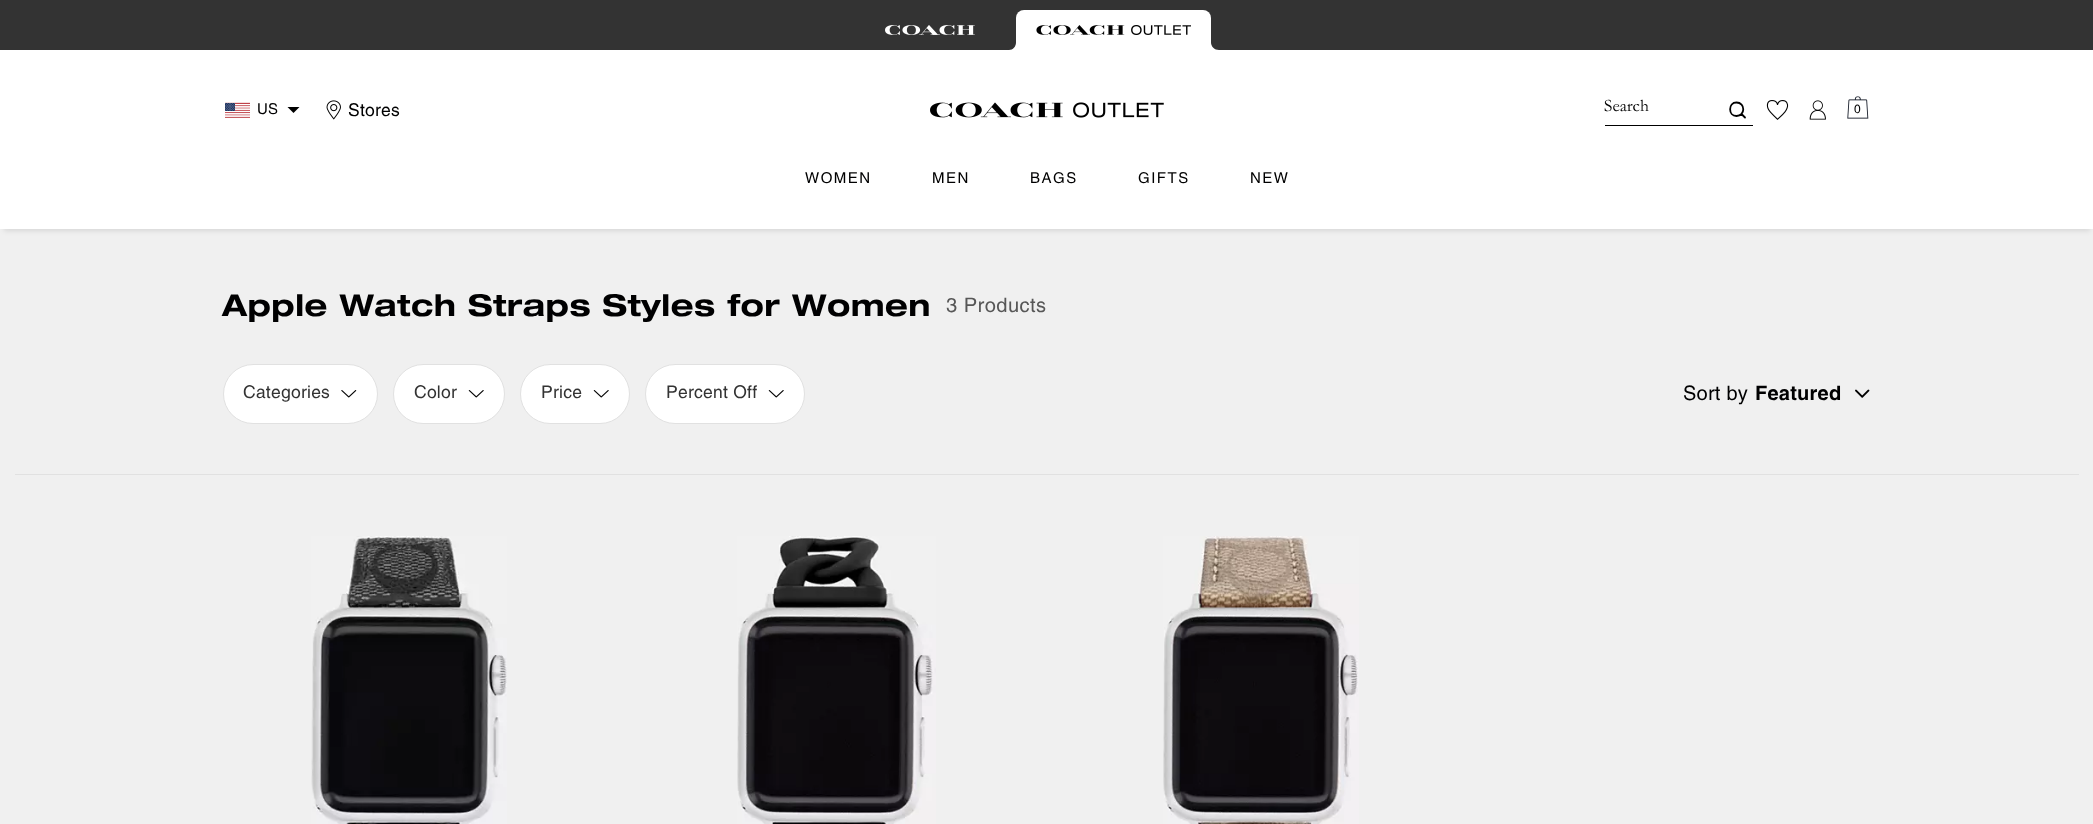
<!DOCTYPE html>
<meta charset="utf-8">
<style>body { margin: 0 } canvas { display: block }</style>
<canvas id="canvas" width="2093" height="824"></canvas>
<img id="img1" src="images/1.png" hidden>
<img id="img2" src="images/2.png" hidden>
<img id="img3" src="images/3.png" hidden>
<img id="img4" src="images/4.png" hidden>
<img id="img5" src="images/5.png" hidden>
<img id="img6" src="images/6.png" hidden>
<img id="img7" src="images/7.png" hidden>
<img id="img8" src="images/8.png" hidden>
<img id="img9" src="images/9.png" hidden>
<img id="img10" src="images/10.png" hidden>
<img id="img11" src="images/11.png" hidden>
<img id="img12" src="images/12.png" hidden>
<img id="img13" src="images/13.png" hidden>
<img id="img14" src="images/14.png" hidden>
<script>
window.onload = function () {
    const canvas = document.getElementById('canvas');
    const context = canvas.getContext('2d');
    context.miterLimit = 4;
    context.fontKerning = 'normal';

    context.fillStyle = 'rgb(255, 255, 255)';
    context.fillRect(0, 0, 2093, 824);
    context.fillStyle = 'rgb(51, 51, 51)';
    context.fillRect(0, 0, 2093, 50);
    context.drawImage(document.getElementById('img1'), 885, 25, 90, 10);
    context.fillStyle = 'rgb(255, 255, 255)';
    context.beginPath();
    context.roundRect(1016, 10, 195, 40, [8, 8, 0, 0]);
    context.fill();
    context.drawImage(document.getElementById('img2'), 1036, 25, 155, 10);
    context.beginPath();
    context.moveTo(1009, 50);
    context.bezierCurveTo(1015, 50, 1024, 51.5, 1026, 43.5);
    context.lineTo(1026, 38);
    context.lineTo(1016, 38);
    context.lineTo(1016, 42.5);
    context.bezierCurveTo(1016, 46.5, 1013, 50, 1009, 50);
    context.closePath();
    context.fill();
    context.beginPath();
    context.moveTo(1201, 38);
    context.lineTo(1201, 43.5);
    context.bezierCurveTo(1203, 52, 1212.5, 50, 1219, 50);
    context.bezierCurveTo(1214.5, 50, 1211, 46.5, 1211, 42.5);
    context.lineTo(1211, 38);
    context.closePath();
    context.fill();
    context.drawImage(document.getElementById('img3'), 225, 102, 25, 16);
    context.fillStyle = 'rgb(0, 0, 0)';
    context.beginPath();
    context.moveTo(293.5, 113);
    context.lineTo(299.5, 107);
    context.lineTo(287.5, 107);
    context.closePath();
    context.fill('evenodd');
    context.drawImage(document.getElementById('img4'), 326, 100, 15, 20);
    context.drawImage(document.getElementById('img5'), 930, 102, 234, 16);
    context.fillRect(1605, 125, 148, 1);
    context.beginPath();
    context.moveTo(1736.5, 116);
    context.bezierCurveTo(1745.5, 116, 1745.5, 102.5, 1736.5, 102.5);
    context.bezierCurveTo(1728, 102.5, 1728, 116, 1736.5, 116);
    context.closePath();
    context.moveTo(1745, 117.5);
    context.lineTo(1741.5, 114);
    context.strokeStyle = 'rgb(0, 0, 0)';
    context.lineWidth = 1.8;
    context.lineCap = 'round';
    context.lineJoin = 'round';
    context.stroke();
    context.drawImage(document.getElementById('img6'), 1766, 100, 23, 20);
    context.drawImage(document.getElementById('img7'), 1809, 100, 17, 20);
    context.drawImage(document.getElementById('img8'), 1847, 96, 22, 23);
    context.fillStyle = 'rgb(240, 240, 240)';
    context.fillRect(0, 229, 2093, 595);
    context.save();
    context.beginPath();
    context.moveTo(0, 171);
    context.lineTo(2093, 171);
    context.lineTo(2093, 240);
    context.lineTo(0, 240);
    context.closePath();
    context.moveTo(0, 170);
    context.lineTo(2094, 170);
    context.lineTo(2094, 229);
    context.lineTo(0, 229);
    context.closePath();
    context.clip('evenodd');
    context.fillStyle = 'rgba(0, 0, 0, 0.1)';
    context.filter = 'blur(2.5px)';
    context.beginPath();
    context.rect(4, 180, 2086, 51);
    context.fill();
    context.filter = 'none';
    context.restore();
    context.fillStyle = 'rgb(255, 255, 255)';
    context.beginPath();
    context.roundRect(223.5, 364.5, 154, 59, 29.5);
    context.fill();
    context.strokeStyle = 'rgb(225, 225, 225)';
    context.lineWidth = 1;
    context.lineJoin = 'miter';
    context.stroke();
    context.drawImage(document.getElementById('img9'), 341, 390, 16, 8);
    context.beginPath();
    context.roundRect(393.5, 364.5, 111, 59, 29.5);
    context.fill();
    context.stroke();
    context.drawImage(document.getElementById('img10'), 468, 390, 16, 8);
    context.beginPath();
    context.roundRect(520.5, 364.5, 109, 59, 29.5);
    context.fill();
    context.stroke();
    context.drawImage(document.getElementById('img10'), 593, 390, 16, 8);
    context.beginPath();
    context.roundRect(645.5, 364.5, 159, 59, 29.5);
    context.fill();
    context.stroke();
    context.drawImage(document.getElementById('img10'), 768, 390, 16, 8);
    context.drawImage(document.getElementById('img11'), 1855, 389, 15, 9);
    context.fillStyle = 'rgb(225, 225, 225)';
    context.fillRect(15, 474, 2064, 1);
    context.drawImage(document.getElementById('img12'), 311, 536, 196, 288);
    context.drawImage(document.getElementById('img13'), 737, 536, 199, 288);
    context.drawImage(document.getElementById('img14'), 1163, 536, 196, 288);
    context.letterSpacing = '0.25px';
    context.font = '15px Helvetica';
    context.fillStyle = 'rgb(0, 0, 1)';
    context.fillText('US', 257, 114);
    context.font = '17.5px Helvetica';
    context.fillText('Stores', 348, 116);
    context.letterSpacing = '0px';
    context.font = '17.5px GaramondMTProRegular';
    context.fillText('Search', 1604, 111);
    context.letterSpacing = '1px';
    context.font = '12px Helvetica';
    context.fillText('0', 1854, 113);
    context.letterSpacing = '1.5px';
    context.font = '15px Helvetica';
    context.fillText('WOMEN', 805, 183);
    context.fillText('MEN', 932, 183);
    context.fillText('BAGS', 1030, 183);
    context.fillText('GIFTS', 1138, 183);
    context.fillText('NEW', 1250, 183);
    context.letterSpacing = '0.5px';
    context.font = 'bold 30px "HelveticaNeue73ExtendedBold"';
    context.fillText('Apple Watch Straps Styles for Women', 222, 316);
    context.font = '20px Helvetica';
    context.fillStyle = 'rgb(87, 87, 87)';
    context.fillText('3 Products', 946, 312);
    context.letterSpacing = '0.25px';
    context.font = '17.5px Helvetica';
    context.fillStyle = 'rgb(51, 51, 51)';
    context.fillText('Categories', 243, 398);
    context.fillText('Color', 414, 398);
    context.fillText('Price', 541, 398);
    context.fillText('Percent Off', 666, 398);
    context.font = '20px Helvetica';
    context.fillStyle = 'rgb(0, 0, 1)';
    context.fillText('Sort by', 1683, 400);
    context.font = 'bold 20px Helvetica';
    context.fillText('Featured', 1755, 400);
};
</script>
